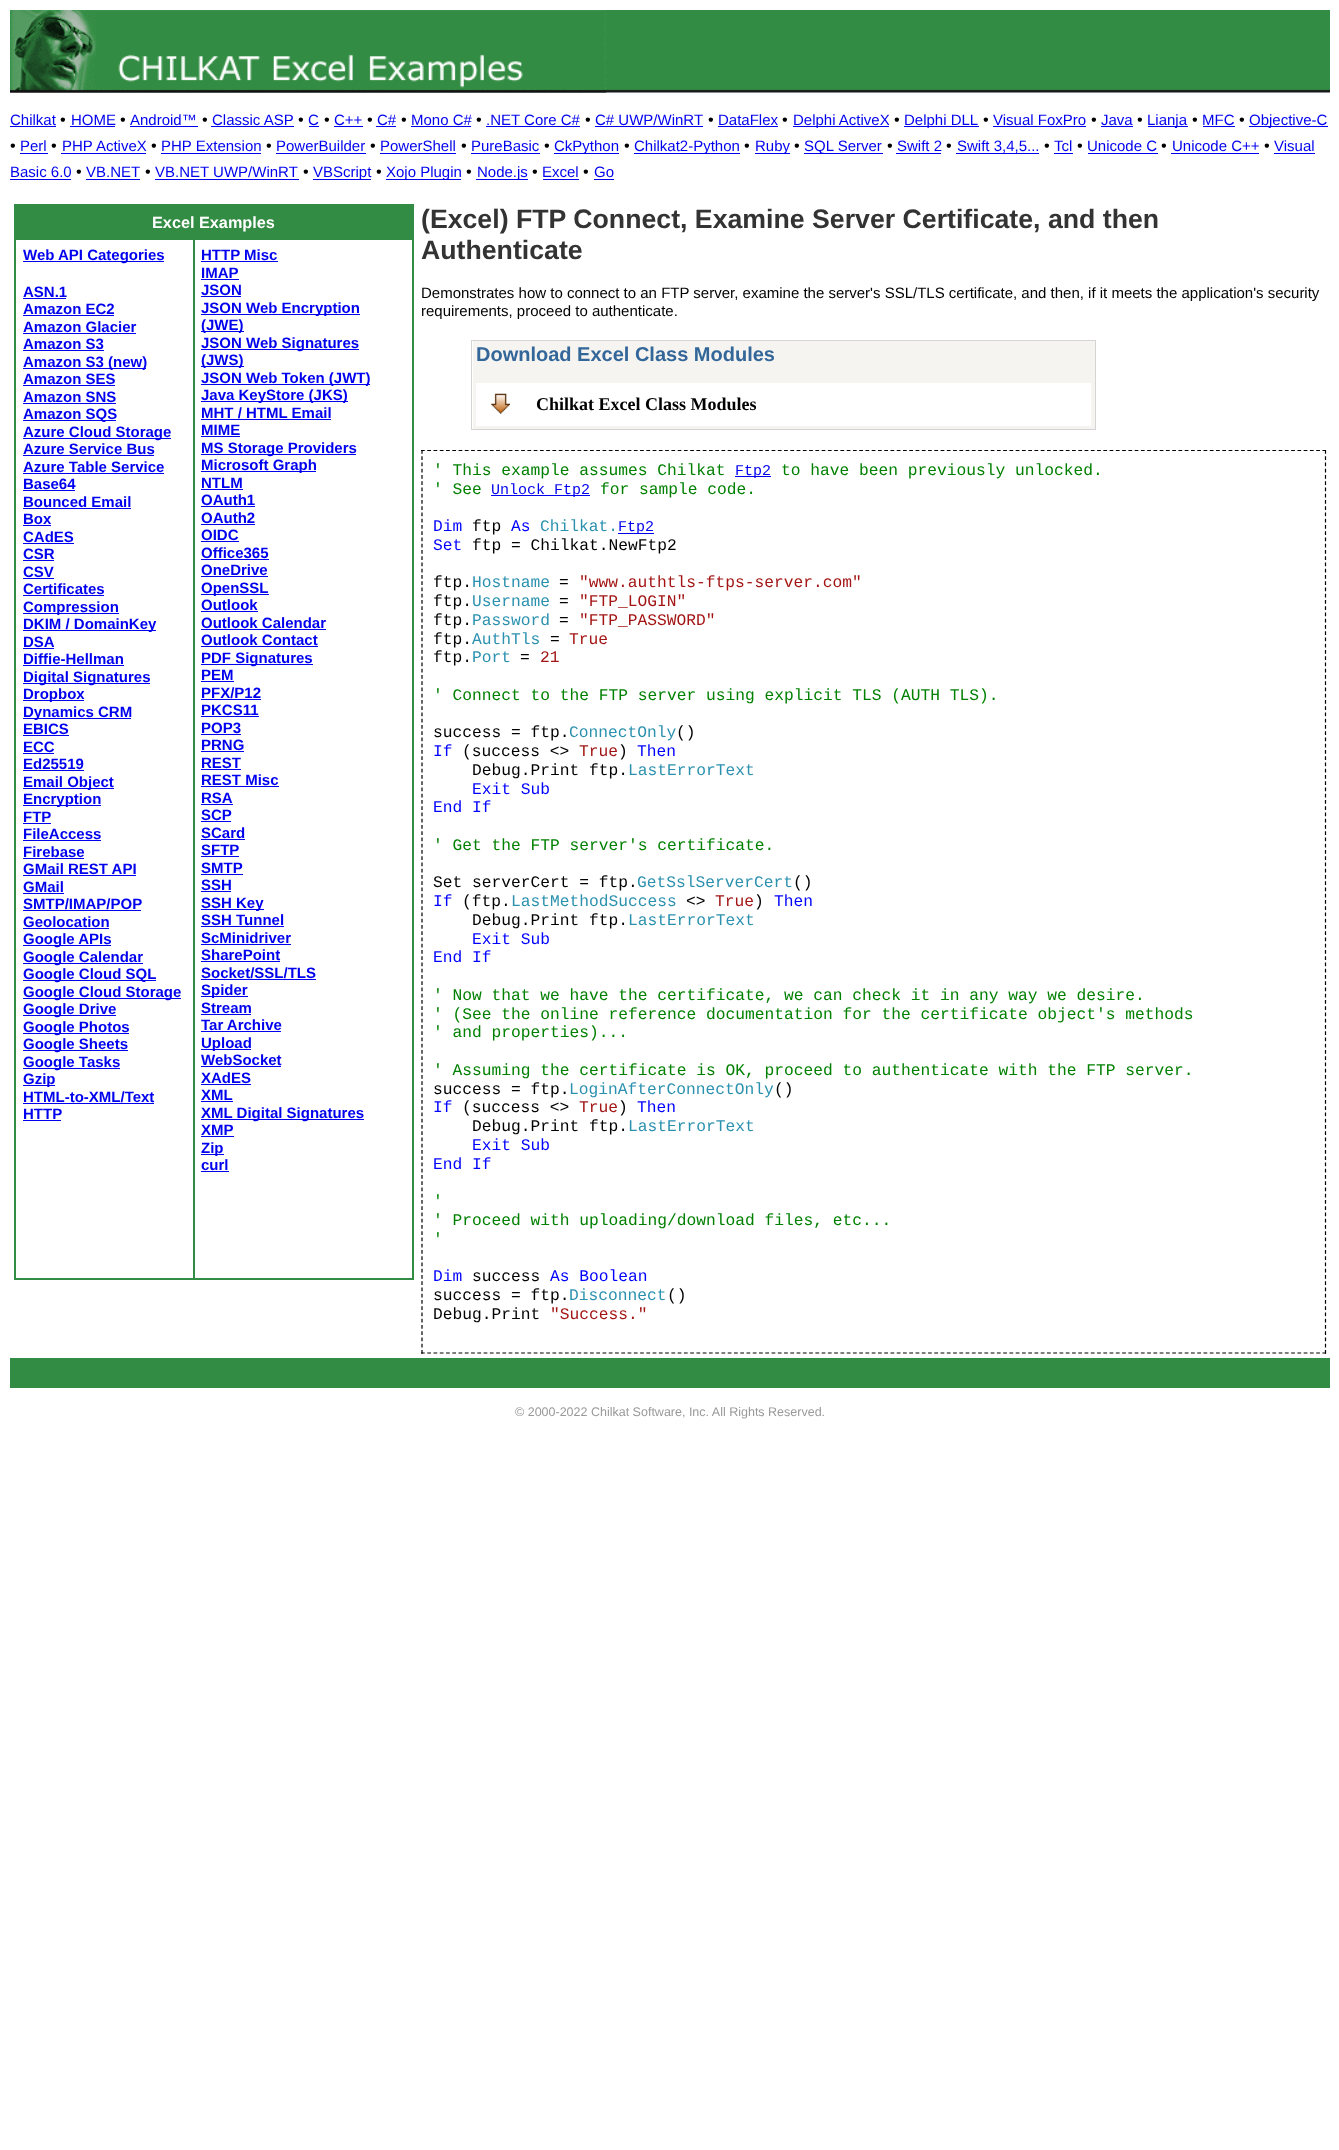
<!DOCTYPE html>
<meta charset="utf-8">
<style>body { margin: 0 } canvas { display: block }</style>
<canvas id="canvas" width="1339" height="2150"></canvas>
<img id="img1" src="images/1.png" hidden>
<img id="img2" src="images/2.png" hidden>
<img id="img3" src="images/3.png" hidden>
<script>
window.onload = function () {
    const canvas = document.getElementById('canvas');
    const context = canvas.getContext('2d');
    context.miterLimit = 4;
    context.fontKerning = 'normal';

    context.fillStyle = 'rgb(255, 255, 255)';
    context.fillRect(0, 0, 1339, 2150);
    context.drawImage(document.getElementById('img1'), 10, 10, 1320, 83);
    context.drawImage(document.getElementById('img2'), 10, 10, 597, 83);
    context.fillStyle = 'rgb(0, 0, 238)';
    context.fillRect(10, 126, 46, 1);
    context.fillRect(70, 126, 45, 1);
    context.fillRect(130, 126, 68, 1);
    context.fillRect(211, 126, 83, 1);
    context.fillRect(309, 126, 10, 1);
    context.fillRect(334, 126, 29, 1);
    context.fillRect(376, 126, 20, 1);
    context.fillRect(411, 126, 60, 1);
    context.fillRect(486, 126, 94, 1);
    context.fillRect(595, 126, 108, 1);
    context.fillRect(718, 126, 60, 1);
    context.fillRect(793, 126, 96, 1);
    context.fillRect(904, 126, 75, 1);
    context.fillRect(993, 126, 93, 1);
    context.fillRect(1101, 126, 32, 1);
    context.fillRect(1148, 126, 40, 1);
    context.fillRect(1203, 126, 32, 1);
    context.fillRect(1249, 126, 79, 1);
    context.fillRect(20, 153, 28, 1);
    context.fillRect(61, 153, 85, 1);
    context.fillRect(161, 153, 100, 1);
    context.fillRect(276, 153, 90, 1);
    context.fillRect(380, 153, 76, 1);
    context.fillRect(471, 153, 69, 1);
    context.fillRect(554, 153, 65, 1);
    context.fillRect(634, 153, 106, 1);
    context.fillRect(755, 153, 35, 1);
    context.fillRect(804, 153, 79, 1);
    context.fillRect(896, 153, 45, 1);
    context.fillRect(956, 153, 83, 1);
    context.fillRect(1054, 153, 19, 1);
    context.fillRect(1088, 153, 70, 1);
    context.fillRect(1171, 153, 88, 1);
    context.fillRect(1274, 153, 41, 1);
    context.fillRect(10, 179, 61, 1);
    context.fillRect(86, 179, 54, 1);
    context.fillRect(155, 179, 144, 1);
    context.fillRect(313, 179, 58, 1);
    context.fillRect(386, 179, 75, 1);
    context.fillRect(476, 179, 52, 1);
    context.fillRect(543, 179, 36, 1);
    context.fillRect(594, 179, 20, 1);
    context.strokeStyle = 'rgb(51, 140, 67)';
    context.strokeRect(14.5, 204.5, 399, 1075);
    context.fillStyle = 'rgb(51, 140, 67)';
    context.fillRect(15, 205, 398, 34);
    context.strokeRect(15.5, 239.5, 178, 1039);
    context.fillStyle = 'rgb(0, 0, 238)';
    context.fillRect(23, 261, 141, 1);
    context.fillRect(23, 298, 43, 1);
    context.fillRect(23, 315, 91, 1);
    context.fillRect(23, 333, 113, 1);
    context.fillRect(23, 350, 81, 1);
    context.fillRect(23, 368, 123, 1);
    context.fillRect(23, 385, 92, 1);
    context.fillRect(23, 403, 93, 1);
    context.fillRect(23, 420, 93, 1);
    context.fillRect(23, 438, 148, 1);
    context.fillRect(23, 455, 131, 1);
    context.fillRect(23, 473, 141, 1);
    context.fillRect(23, 490, 52, 1);
    context.fillRect(23, 508, 108, 1);
    context.fillRect(23, 525, 28, 1);
    context.fillRect(23, 543, 51, 1);
    context.fillRect(23, 560, 31, 1);
    context.fillRect(23, 578, 31, 1);
    context.fillRect(23, 595, 81, 1);
    context.fillRect(23, 613, 96, 1);
    context.fillRect(23, 630, 133, 1);
    context.fillRect(23, 648, 31, 1);
    context.fillRect(23, 665, 101, 1);
    context.fillRect(23, 683, 127, 1);
    context.fillRect(23, 700, 61, 1);
    context.fillRect(23, 718, 108, 1);
    context.fillRect(23, 735, 46, 1);
    context.fillRect(23, 753, 31, 1);
    context.fillRect(23, 770, 61, 1);
    context.fillRect(23, 788, 91, 1);
    context.fillRect(23, 805, 78, 1);
    context.fillRect(23, 823, 28, 1);
    context.fillRect(23, 840, 78, 1);
    context.fillRect(23, 858, 61, 1);
    context.fillRect(23, 875, 113, 1);
    context.fillRect(23, 893, 41, 1);
    context.fillRect(23, 910, 118, 1);
    context.fillRect(23, 928, 86, 1);
    context.fillRect(23, 945, 88, 1);
    context.fillRect(23, 963, 120, 1);
    context.fillRect(23, 980, 133, 1);
    context.fillRect(23, 998, 158, 1);
    context.fillRect(23, 1015, 93, 1);
    context.fillRect(23, 1033, 106, 1);
    context.fillRect(23, 1050, 105, 1);
    context.fillRect(23, 1068, 97, 1);
    context.fillRect(23, 1085, 32, 1);
    context.fillRect(23, 1103, 131, 1);
    context.fillRect(23, 1120, 38, 1);
    context.strokeRect(194.5, 239.5, 218, 1039);
    context.fillRect(201, 261, 77, 1);
    context.fillRect(201, 279, 38, 1);
    context.fillRect(201, 296, 40, 1);
    context.fillRect(201, 314, 159, 1);
    context.fillRect(201, 331, 43, 1);
    context.fillRect(201, 349, 158, 1);
    context.fillRect(201, 366, 43, 1);
    context.fillRect(201, 384, 169, 1);
    context.fillRect(201, 401, 147, 1);
    context.fillRect(201, 419, 130, 1);
    context.fillRect(201, 436, 39, 1);
    context.fillRect(201, 454, 155, 1);
    context.fillRect(201, 471, 115, 1);
    context.fillRect(201, 489, 42, 1);
    context.fillRect(201, 506, 54, 1);
    context.fillRect(201, 524, 54, 1);
    context.fillRect(201, 541, 38, 1);
    context.fillRect(201, 559, 68, 1);
    context.fillRect(201, 576, 67, 1);
    context.fillRect(201, 594, 68, 1);
    context.fillRect(201, 611, 57, 1);
    context.fillRect(201, 629, 125, 1);
    context.fillRect(201, 646, 117, 1);
    context.fillRect(201, 664, 112, 1);
    context.fillRect(201, 681, 33, 1);
    context.fillRect(201, 699, 60, 1);
    context.fillRect(201, 716, 58, 1);
    context.fillRect(201, 734, 40, 1);
    context.fillRect(201, 751, 43, 1);
    context.fillRect(201, 769, 40, 1);
    context.fillRect(201, 786, 78, 1);
    context.fillRect(201, 804, 32, 1);
    context.fillRect(201, 821, 30, 1);
    context.fillRect(201, 839, 44, 1);
    context.fillRect(201, 856, 38, 1);
    context.fillRect(201, 874, 42, 1);
    context.fillRect(201, 891, 30, 1);
    context.fillRect(201, 909, 63, 1);
    context.fillRect(201, 926, 83, 1);
    context.fillRect(201, 944, 90, 1);
    context.fillRect(201, 961, 79, 1);
    context.fillRect(201, 979, 115, 1);
    context.fillRect(201, 996, 47, 1);
    context.fillRect(201, 1014, 50, 1);
    context.fillRect(201, 1031, 80, 1);
    context.fillRect(201, 1049, 50, 1);
    context.fillRect(201, 1066, 80, 1);
    context.fillRect(201, 1084, 50, 1);
    context.fillRect(201, 1101, 32, 1);
    context.fillRect(201, 1119, 163, 1);
    context.fillRect(201, 1136, 33, 1);
    context.fillRect(201, 1154, 23, 1);
    context.fillRect(201, 1171, 28, 1);
    context.fillStyle = 'rgb(246, 244, 240)';
    context.fillRect(473, 341, 622, 88);
    context.fillStyle = 'rgb(212, 212, 212)';
    context.fillRect(471, 340, 625, 1);
    context.fillRect(1095, 340, 1, 90);
    context.fillRect(471, 429, 625, 1);
    context.fillRect(471, 340, 1, 90);
    context.fillStyle = 'rgb(255, 255, 255)';
    context.fillRect(476, 383, 615, 43);
    context.drawImage(document.getElementById('img3'), 491, 393, 19, 21);
    context.beginPath();
    context.moveTo(421, 450.5);
    context.lineTo(1326, 450.5);
    context.strokeStyle = 'rgb(0, 0, 0)';
    context.lineWidth = 1.2;
    context.setLineDash([3.75, 2.51]);
    context.stroke();
    context.beginPath();
    context.moveTo(1325.5, 450);
    context.lineTo(1325.5, 1354);
    context.setLineDash([3.75, 2.5]);
    context.stroke();
    context.beginPath();
    context.moveTo(421, 1353);
    context.lineTo(1326, 1353);
    context.setLineDash([3.75, 2.51]);
    context.stroke();
    context.beginPath();
    context.moveTo(422, 450);
    context.lineTo(422, 1354);
    context.setLineDash([3.75, 2.5]);
    context.stroke();
    context.fillStyle = 'rgb(0, 0, 238)';
    context.fillRect(735, 476, 36, 1);
    context.fillRect(491, 495, 99, 1);
    context.fillRect(618, 533, 36, 1);
    context.fillStyle = 'rgb(51, 140, 67)';
    context.fillRect(10, 1358, 1320, 30);
    context.font = '15px Liberation Sans';
    context.fillStyle = 'rgb(0, 0, 238)';
    context.fillText('Chilkat', 10, 125);
    context.font = '16.25px Liberation Sans';
    context.fillStyle = 'rgb(0, 0, 0)';
    context.fillText('•', 60, 125);
    context.font = '15px Liberation Sans';
    context.fillStyle = 'rgb(0, 0, 238)';
    context.fillText('HOME', 71, 125);
    context.font = '16.25px Liberation Sans';
    context.fillStyle = 'rgb(0, 0, 0)';
    context.fillText('•', 120, 125);
    context.font = '15px Liberation Sans';
    context.fillStyle = 'rgb(0, 0, 238)';
    context.fillText('Android™', 130, 125);
    context.font = '16.25px Liberation Sans';
    context.fillStyle = 'rgb(0, 0, 0)';
    context.fillText('•', 202, 125);
    context.font = '15px Liberation Sans';
    context.fillStyle = 'rgb(0, 0, 238)';
    context.fillText('Classic ASP', 212, 125);
    context.font = '16.25px Liberation Sans';
    context.fillStyle = 'rgb(0, 0, 0)';
    context.fillText('•', 298, 125);
    context.font = '15px Liberation Sans';
    context.fillStyle = 'rgb(0, 0, 238)';
    context.fillText('C', 308, 125);
    context.font = '16.25px Liberation Sans';
    context.fillStyle = 'rgb(0, 0, 0)';
    context.fillText('•', 324, 125);
    context.font = '15px Liberation Sans';
    context.fillStyle = 'rgb(0, 0, 238)';
    context.fillText('C++', 334, 125);
    context.font = '16.25px Liberation Sans';
    context.fillStyle = 'rgb(0, 0, 0)';
    context.fillText('•', 367, 125);
    context.font = '15px Liberation Sans';
    context.fillStyle = 'rgb(0, 0, 238)';
    context.fillText('C#', 377, 125);
    context.font = '16.25px Liberation Sans';
    context.fillStyle = 'rgb(0, 0, 0)';
    context.fillText('•', 401, 125);
    context.font = '15px Liberation Sans';
    context.fillStyle = 'rgb(0, 0, 238)';
    context.fillText('Mono C#', 411, 125);
    context.font = '16.25px Liberation Sans';
    context.fillStyle = 'rgb(0, 0, 0)';
    context.fillText('•', 476, 125);
    context.font = '15px Liberation Sans';
    context.fillStyle = 'rgb(0, 0, 238)';
    context.fillText('.NET Core C#', 486, 125);
    context.font = '16.25px Liberation Sans';
    context.fillStyle = 'rgb(0, 0, 0)';
    context.fillText('•', 585, 125);
    context.font = '15px Liberation Sans';
    context.fillStyle = 'rgb(0, 0, 238)';
    context.fillText('C# UWP/WinRT', 595, 125);
    context.font = '16.25px Liberation Sans';
    context.fillStyle = 'rgb(0, 0, 0)';
    context.fillText('•', 708, 125);
    context.font = '15px Liberation Sans';
    context.fillStyle = 'rgb(0, 0, 238)';
    context.fillText('DataFlex', 718, 125);
    context.font = '16.25px Liberation Sans';
    context.fillStyle = 'rgb(0, 0, 0)';
    context.fillText('•', 782, 125);
    context.font = '15px Liberation Sans';
    context.fillStyle = 'rgb(0, 0, 238)';
    context.fillText('Delphi ActiveX', 793, 125);
    context.font = '16.25px Liberation Sans';
    context.fillStyle = 'rgb(0, 0, 0)';
    context.fillText('•', 894, 125);
    context.font = '15px Liberation Sans';
    context.fillStyle = 'rgb(0, 0, 238)';
    context.fillText('Delphi DLL', 904, 125);
    context.font = '16.25px Liberation Sans';
    context.fillStyle = 'rgb(0, 0, 0)';
    context.fillText('•', 983, 125);
    context.font = '15px Liberation Sans';
    context.fillStyle = 'rgb(0, 0, 238)';
    context.fillText('Visual FoxPro', 993, 125);
    context.font = '16.25px Liberation Sans';
    context.fillStyle = 'rgb(0, 0, 0)';
    context.fillText('•', 1091, 125);
    context.font = '15px Liberation Sans';
    context.fillStyle = 'rgb(0, 0, 238)';
    context.fillText('Java', 1101, 125);
    context.font = '16.25px Liberation Sans';
    context.fillStyle = 'rgb(0, 0, 0)';
    context.fillText('•', 1137, 125);
    context.font = '15px Liberation Sans';
    context.fillStyle = 'rgb(0, 0, 238)';
    context.fillText('Lianja', 1147, 125);
    context.font = '16.25px Liberation Sans';
    context.fillStyle = 'rgb(0, 0, 0)';
    context.fillText('•', 1192, 125);
    context.font = '15px Liberation Sans';
    context.fillStyle = 'rgb(0, 0, 238)';
    context.fillText('MFC', 1202, 125);
    context.font = '16.25px Liberation Sans';
    context.fillStyle = 'rgb(0, 0, 0)';
    context.fillText('•', 1239, 125);
    context.font = '15px Liberation Sans';
    context.fillStyle = 'rgb(0, 0, 238)';
    context.fillText('Objective-C', 1249, 125);
    context.font = '16.25px Liberation Sans';
    context.fillStyle = 'rgb(0, 0, 0)';
    context.fillText('•', 10, 151);
    context.font = '15px Liberation Sans';
    context.fillStyle = 'rgb(0, 0, 238)';
    context.fillText('Perl', 20, 151);
    context.font = '16.25px Liberation Sans';
    context.fillStyle = 'rgb(0, 0, 0)';
    context.fillText('•', 51, 151);
    context.font = '15px Liberation Sans';
    context.fillStyle = 'rgb(0, 0, 238)';
    context.fillText('PHP ActiveX', 62, 151);
    context.font = '16.25px Liberation Sans';
    context.fillStyle = 'rgb(0, 0, 0)';
    context.fillText('•', 151, 151);
    context.font = '15px Liberation Sans';
    context.fillStyle = 'rgb(0, 0, 238)';
    context.fillText('PHP Extension', 161, 151);
    context.font = '16.25px Liberation Sans';
    context.fillStyle = 'rgb(0, 0, 0)';
    context.fillText('•', 266, 151);
    context.font = '15px Liberation Sans';
    context.fillStyle = 'rgb(0, 0, 238)';
    context.fillText('PowerBuilder', 276, 151);
    context.font = '16.25px Liberation Sans';
    context.fillStyle = 'rgb(0, 0, 0)';
    context.fillText('•', 370, 151);
    context.font = '15px Liberation Sans';
    context.fillStyle = 'rgb(0, 0, 238)';
    context.fillText('PowerShell', 380, 151);
    context.font = '16.25px Liberation Sans';
    context.fillStyle = 'rgb(0, 0, 0)';
    context.fillText('•', 461, 151);
    context.font = '15px Liberation Sans';
    context.fillStyle = 'rgb(0, 0, 238)';
    context.fillText('PureBasic', 471, 151);
    context.font = '16.25px Liberation Sans';
    context.fillStyle = 'rgb(0, 0, 0)';
    context.fillText('•', 544, 151);
    context.font = '15px Liberation Sans';
    context.fillStyle = 'rgb(0, 0, 238)';
    context.fillText('CkPython', 554, 151);
    context.font = '16.25px Liberation Sans';
    context.fillStyle = 'rgb(0, 0, 0)';
    context.fillText('•', 624, 151);
    context.font = '15px Liberation Sans';
    context.fillStyle = 'rgb(0, 0, 238)';
    context.fillText('Chilkat2-Python', 634, 151);
    context.font = '16.25px Liberation Sans';
    context.fillStyle = 'rgb(0, 0, 0)';
    context.fillText('•', 744, 151);
    context.font = '15px Liberation Sans';
    context.fillStyle = 'rgb(0, 0, 238)';
    context.fillText('Ruby', 755, 151);
    context.font = '16.25px Liberation Sans';
    context.fillStyle = 'rgb(0, 0, 0)';
    context.fillText('•', 794, 151);
    context.font = '15px Liberation Sans';
    context.fillStyle = 'rgb(0, 0, 238)';
    context.fillText('SQL Server', 804, 151);
    context.font = '16.25px Liberation Sans';
    context.fillStyle = 'rgb(0, 0, 0)';
    context.fillText('•', 887, 151);
    context.font = '15px Liberation Sans';
    context.fillStyle = 'rgb(0, 0, 238)';
    context.fillText('Swift 2', 897, 151);
    context.font = '16.25px Liberation Sans';
    context.fillStyle = 'rgb(0, 0, 0)';
    context.fillText('•', 946, 151);
    context.font = '15px Liberation Sans';
    context.fillStyle = 'rgb(0, 0, 238)';
    context.fillText('Swift 3,4,5...', 957, 151);
    context.font = '16.25px Liberation Sans';
    context.fillStyle = 'rgb(0, 0, 0)';
    context.fillText('•', 1044, 151);
    context.font = '15px Liberation Sans';
    context.fillStyle = 'rgb(0, 0, 238)';
    context.fillText('Tcl', 1054, 151);
    context.font = '16.25px Liberation Sans';
    context.fillStyle = 'rgb(0, 0, 0)';
    context.fillText('•', 1077, 151);
    context.font = '15px Liberation Sans';
    context.fillStyle = 'rgb(0, 0, 238)';
    context.fillText('Unicode C', 1087, 151);
    context.font = '16.25px Liberation Sans';
    context.fillStyle = 'rgb(0, 0, 0)';
    context.fillText('•', 1161, 151);
    context.font = '15px Liberation Sans';
    context.fillStyle = 'rgb(0, 0, 238)';
    context.fillText('Unicode C++', 1172, 151);
    context.font = '16.25px Liberation Sans';
    context.fillStyle = 'rgb(0, 0, 0)';
    context.fillText('•', 1264, 151);
    context.font = '15px Liberation Sans';
    context.fillStyle = 'rgb(0, 0, 238)';
    context.fillText('Visual', 1274, 151);
    context.fillText('Basic 6.0', 10, 177);
    context.font = '16.25px Liberation Sans';
    context.fillStyle = 'rgb(0, 0, 0)';
    context.fillText('•', 76, 177);
    context.font = '15px Liberation Sans';
    context.fillStyle = 'rgb(0, 0, 238)';
    context.fillText('VB.NET', 86, 177);
    context.font = '16.25px Liberation Sans';
    context.fillStyle = 'rgb(0, 0, 0)';
    context.fillText('•', 145, 177);
    context.font = '15px Liberation Sans';
    context.fillStyle = 'rgb(0, 0, 238)';
    context.fillText('VB.NET UWP/WinRT', 155, 177);
    context.font = '16.25px Liberation Sans';
    context.fillStyle = 'rgb(0, 0, 0)';
    context.fillText('•', 303, 177);
    context.font = '15px Liberation Sans';
    context.fillStyle = 'rgb(0, 0, 238)';
    context.fillText('VBScript', 313, 177);
    context.font = '16.25px Liberation Sans';
    context.fillStyle = 'rgb(0, 0, 0)';
    context.fillText('•', 376, 177);
    context.font = '15px Liberation Sans';
    context.fillStyle = 'rgb(0, 0, 238)';
    context.fillText('Xojo Plugin', 386, 177);
    context.font = '16.25px Liberation Sans';
    context.fillStyle = 'rgb(0, 0, 0)';
    context.fillText('•', 466, 177);
    context.font = '15px Liberation Sans';
    context.fillStyle = 'rgb(0, 0, 238)';
    context.fillText('Node.js', 477, 177);
    context.font = '16.25px Liberation Sans';
    context.fillStyle = 'rgb(0, 0, 0)';
    context.fillText('•', 532, 177);
    context.font = '15px Liberation Sans';
    context.fillStyle = 'rgb(0, 0, 238)';
    context.fillText('Excel', 542, 177);
    context.font = '16.25px Liberation Sans';
    context.fillStyle = 'rgb(0, 0, 0)';
    context.fillText('•', 583, 177);
    context.font = '15px Liberation Sans';
    context.fillStyle = 'rgb(0, 0, 238)';
    context.fillText('Go', 594, 177);
    context.font = 'bold 16.25px Liberation Sans';
    context.fillStyle = 'rgb(255, 255, 255)';
    context.fillText('Excel Examples', 152, 228);
    context.font = 'bold 15px Liberation Sans';
    context.fillStyle = 'rgb(0, 0, 238)';
    context.fillText('Web API Categories', 23, 260);
    context.fillText('ASN.1', 23, 297);
    context.fillText('Amazon EC2', 23, 314);
    context.fillText('Amazon Glacier', 23, 332);
    context.fillText('Amazon S3', 23, 349);
    context.fillText('Amazon S3 (new)', 23, 367);
    context.fillText('Amazon SES', 23, 384);
    context.fillText('Amazon SNS', 23, 402);
    context.fillText('Amazon SQS', 23, 419);
    context.fillText('Azure Cloud Storage', 23, 437);
    context.fillText('Azure Service Bus', 23, 454);
    context.fillText('Azure Table Service', 23, 472);
    context.fillText('Base64', 23, 489);
    context.fillText('Bounced Email', 23, 507);
    context.fillText('Box', 23, 524);
    context.fillText('CAdES', 23, 542);
    context.fillText('CSR', 23, 559);
    context.fillText('CSV', 23, 577);
    context.fillText('Certificates', 23, 594);
    context.fillText('Compression', 23, 612);
    context.fillText('DKIM / DomainKey', 23, 629);
    context.fillText('DSA', 23, 647);
    context.fillText('Diffie-Hellman', 23, 664);
    context.fillText('Digital Signatures', 23, 682);
    context.fillText('Dropbox', 23, 699);
    context.fillText('Dynamics CRM', 23, 717);
    context.fillText('EBICS', 23, 734);
    context.fillText('ECC', 23, 752);
    context.fillText('Ed25519', 23, 769);
    context.fillText('Email Object', 23, 787);
    context.fillText('Encryption', 23, 804);
    context.fillText('FTP', 23, 822);
    context.fillText('FileAccess', 23, 839);
    context.fillText('Firebase', 23, 857);
    context.fillText('GMail REST API', 23, 874);
    context.fillText('GMail', 23, 892);
    context.fillText('SMTP/IMAP/POP', 23, 909);
    context.fillText('Geolocation', 23, 927);
    context.fillText('Google APIs', 23, 944);
    context.fillText('Google Calendar', 23, 962);
    context.fillText('Google Cloud SQL', 23, 979);
    context.fillText('Google Cloud Storage', 23, 997);
    context.fillText('Google Drive', 23, 1014);
    context.fillText('Google Photos', 23, 1032);
    context.fillText('Google Sheets', 23, 1049);
    context.fillText('Google Tasks', 23, 1067);
    context.fillText('Gzip', 23, 1084);
    context.fillText('HTML-to-XML/Text', 23, 1102);
    context.fillText('HTTP', 23, 1119);
    context.fillText('HTTP Misc', 201, 260);
    context.fillText('IMAP', 201, 278);
    context.fillText('JSON', 201, 295);
    context.fillText('JSON Web Encryption', 201, 313);
    context.fillText('(JWE)', 201, 330);
    context.fillText('JSON Web Signatures', 201, 348);
    context.fillText('(JWS)', 201, 365);
    context.fillText('JSON Web Token (JWT)', 201, 383);
    context.fillText('Java KeyStore (JKS)', 201, 400);
    context.fillText('MHT / HTML Email', 201, 418);
    context.fillText('MIME', 201, 435);
    context.fillText('MS Storage Providers', 201, 453);
    context.fillText('Microsoft Graph', 201, 470);
    context.fillText('NTLM', 201, 488);
    context.fillText('OAuth1', 201, 505);
    context.fillText('OAuth2', 201, 523);
    context.fillText('OIDC', 201, 540);
    context.fillText('Office365', 201, 558);
    context.fillText('OneDrive', 201, 575);
    context.fillText('OpenSSL', 201, 593);
    context.fillText('Outlook', 201, 610);
    context.fillText('Outlook Calendar', 201, 628);
    context.fillText('Outlook Contact', 201, 645);
    context.fillText('PDF Signatures', 201, 663);
    context.fillText('PEM', 201, 680);
    context.fillText('PFX/P12', 201, 698);
    context.fillText('PKCS11', 201, 715);
    context.fillText('POP3', 201, 733);
    context.fillText('PRNG', 201, 750);
    context.fillText('REST', 201, 768);
    context.fillText('REST Misc', 201, 785);
    context.fillText('RSA', 201, 803);
    context.fillText('SCP', 201, 820);
    context.fillText('SCard', 201, 838);
    context.fillText('SFTP', 201, 855);
    context.fillText('SMTP', 201, 873);
    context.fillText('SSH', 201, 890);
    context.fillText('SSH Key', 201, 908);
    context.fillText('SSH Tunnel', 201, 925);
    context.fillText('ScMinidriver', 201, 943);
    context.fillText('SharePoint', 201, 960);
    context.fillText('Socket/SSL/TLS', 201, 978);
    context.fillText('Spider', 201, 995);
    context.fillText('Stream', 201, 1013);
    context.fillText('Tar Archive', 201, 1030);
    context.fillText('Upload', 201, 1048);
    context.fillText('WebSocket', 201, 1065);
    context.fillText('XAdES', 201, 1083);
    context.fillText('XML', 201, 1100);
    context.fillText('XML Digital Signatures', 201, 1118);
    context.fillText('XMP', 201, 1135);
    context.fillText('Zip', 201, 1153);
    context.fillText('curl', 201, 1170);
    context.font = 'bold 26.7px Liberation Sans';
    context.fillStyle = 'rgb(51, 51, 51)';
    context.fillText('(Excel) FTP Connect, Examine Server Certificate, and then', 421, 228);
    context.fillText('Authenticate', 421, 259);
    context.font = '15px Liberation Sans';
    context.fillStyle = 'rgb(0, 0, 0)';
    context.fillText('Demonstrates how to connect to an FTP server, examine the server\'s SSL/TLS certificate, and then, if it meets the application\'s security', 421, 298);
    context.fillText('requirements, proceed to authenticate.', 421, 316);
    context.font = 'bold 20px Liberation Sans';
    context.fillStyle = 'rgb(51, 102, 153)';
    context.fillText('Download Excel Class Modules', 476, 361);
    context.font = 'bold 18px Liberation Serif';
    context.fillStyle = 'rgb(0, 0, 0)';
    context.fillText('Chilkat Excel Class Modules', 536, 410);
    context.font = '16.25px Liberation Mono';
    context.fillStyle = 'rgb(0, 128, 0)';
    context.fillText('\' This example assumes Chilkat', 433, 475);
    context.font = '15px Liberation Mono';
    context.fillStyle = 'rgb(0, 0, 238)';
    context.fillText('Ftp2', 735, 475);
    context.font = '16.25px Liberation Mono';
    context.fillStyle = 'rgb(0, 128, 0)';
    context.fillText('to have been previously unlocked.', 781, 475);
    context.fillText('\' See', 433, 494);
    context.font = '15px Liberation Mono';
    context.fillStyle = 'rgb(0, 0, 238)';
    context.fillText('Unlock Ftp2', 491, 494);
    context.font = '16.25px Liberation Mono';
    context.fillStyle = 'rgb(0, 128, 0)';
    context.fillText('for sample code.', 600, 494);
    context.fillStyle = 'rgb(0, 0, 255)';
    context.fillText('Dim', 433, 531);
    context.fillStyle = 'rgb(0, 0, 0)';
    context.fillText('ftp', 472, 531);
    context.fillStyle = 'rgb(0, 0, 255)';
    context.fillText('As', 511, 531);
    context.fillStyle = 'rgb(43, 145, 175)';
    context.fillText('Chilkat.', 540, 531);
    context.font = '15px Liberation Mono';
    context.fillStyle = 'rgb(0, 0, 238)';
    context.fillText('Ftp2', 618, 531);
    context.font = '16.25px Liberation Mono';
    context.fillStyle = 'rgb(0, 0, 255)';
    context.fillText('Set', 433, 550);
    context.fillStyle = 'rgb(0, 0, 0)';
    context.fillText('ftp = Chilkat.NewFtp2', 472, 550);
    context.fillText('ftp.', 433, 587);
    context.fillStyle = 'rgb(43, 145, 175)';
    context.fillText('Hostname', 472, 587);
    context.fillStyle = 'rgb(0, 0, 0)';
    context.fillText('=', 559, 587);
    context.fillStyle = 'rgb(163, 21, 21)';
    context.fillText('"www.authtls-ftps-server.com"', 579, 587);
    context.fillStyle = 'rgb(0, 0, 0)';
    context.fillText('ftp.', 433, 606);
    context.fillStyle = 'rgb(43, 145, 175)';
    context.fillText('Username', 472, 606);
    context.fillStyle = 'rgb(0, 0, 0)';
    context.fillText('=', 559, 606);
    context.fillStyle = 'rgb(163, 21, 21)';
    context.fillText('"FTP_LOGIN"', 579, 606);
    context.fillStyle = 'rgb(0, 0, 0)';
    context.fillText('ftp.', 433, 625);
    context.fillStyle = 'rgb(43, 145, 175)';
    context.fillText('Password', 472, 625);
    context.fillStyle = 'rgb(0, 0, 0)';
    context.fillText('=', 559, 625);
    context.fillStyle = 'rgb(163, 21, 21)';
    context.fillText('"FTP_PASSWORD"', 579, 625);
    context.fillStyle = 'rgb(0, 0, 0)';
    context.fillText('ftp.', 433, 644);
    context.fillStyle = 'rgb(43, 145, 175)';
    context.fillText('AuthTls', 472, 644);
    context.fillStyle = 'rgb(0, 0, 0)';
    context.fillText('=', 550, 644);
    context.fillStyle = 'rgb(163, 21, 21)';
    context.fillText('True', 569, 644);
    context.fillStyle = 'rgb(0, 0, 0)';
    context.fillText('ftp.', 433, 662);
    context.fillStyle = 'rgb(43, 145, 175)';
    context.fillText('Port', 472, 662);
    context.fillStyle = 'rgb(0, 0, 0)';
    context.fillText('=', 520, 662);
    context.fillStyle = 'rgb(163, 21, 21)';
    context.fillText('21', 540, 662);
    context.fillStyle = 'rgb(0, 128, 0)';
    context.fillText('\' Connect to the FTP server using explicit TLS (AUTH TLS).', 433, 700);
    context.fillStyle = 'rgb(0, 0, 0)';
    context.fillText('success = ftp.', 433, 737);
    context.fillStyle = 'rgb(43, 145, 175)';
    context.fillText('ConnectOnly', 569, 737);
    context.fillStyle = 'rgb(0, 0, 0)';
    context.fillText('()', 676, 737);
    context.fillStyle = 'rgb(0, 0, 255)';
    context.fillText('If', 433, 756);
    context.fillStyle = 'rgb(0, 0, 0)';
    context.fillText('(success <>', 462, 756);
    context.fillStyle = 'rgb(163, 21, 21)';
    context.fillText('True', 579, 756);
    context.fillStyle = 'rgb(0, 0, 0)';
    context.fillText(')', 618, 756);
    context.fillStyle = 'rgb(0, 0, 255)';
    context.fillText('Then', 637, 756);
    context.fillStyle = 'rgb(0, 0, 0)';
    context.fillText('Debug.Print ftp.', 472, 775);
    context.fillStyle = 'rgb(43, 145, 175)';
    context.fillText('LastErrorText', 628, 775);
    context.fillStyle = 'rgb(0, 0, 255)';
    context.fillText('Exit Sub', 472, 794);
    context.fillText('End If', 433, 812);
    context.fillStyle = 'rgb(0, 128, 0)';
    context.fillText('\' Get the FTP server\'s certificate.', 433, 850);
    context.fillStyle = 'rgb(0, 0, 0)';
    context.fillText('Set serverCert = ftp.', 433, 887);
    context.fillStyle = 'rgb(43, 145, 175)';
    context.fillText('GetSslServerCert', 637, 887);
    context.fillStyle = 'rgb(0, 0, 0)';
    context.fillText('()', 793, 887);
    context.fillStyle = 'rgb(0, 0, 255)';
    context.fillText('If', 433, 906);
    context.fillStyle = 'rgb(0, 0, 0)';
    context.fillText('(ftp.', 462, 906);
    context.fillStyle = 'rgb(43, 145, 175)';
    context.fillText('LastMethodSuccess', 511, 906);
    context.fillStyle = 'rgb(0, 0, 0)';
    context.fillText('<>', 686, 906);
    context.fillStyle = 'rgb(163, 21, 21)';
    context.fillText('True', 715, 906);
    context.fillStyle = 'rgb(0, 0, 0)';
    context.fillText(')', 754, 906);
    context.fillStyle = 'rgb(0, 0, 255)';
    context.fillText('Then', 774, 906);
    context.fillStyle = 'rgb(0, 0, 0)';
    context.fillText('Debug.Print ftp.', 472, 925);
    context.fillStyle = 'rgb(43, 145, 175)';
    context.fillText('LastErrorText', 628, 925);
    context.fillStyle = 'rgb(0, 0, 255)';
    context.fillText('Exit Sub', 472, 944);
    context.fillText('End If', 433, 962);
    context.fillStyle = 'rgb(0, 128, 0)';
    context.fillText('\' Now that we have the certificate, we can check it in any way we desire.', 433, 1000);
    context.fillText('\' (See the online reference documentation for the certificate object\'s methods', 433, 1019);
    context.fillText('\' and properties)...', 433, 1037);
    context.fillText('\' Assuming the certificate is OK, proceed to authenticate with the FTP server.', 433, 1075);
    context.fillStyle = 'rgb(0, 0, 0)';
    context.fillText('success = ftp.', 433, 1094);
    context.fillStyle = 'rgb(43, 145, 175)';
    context.fillText('LoginAfterConnectOnly', 569, 1094);
    context.fillStyle = 'rgb(0, 0, 0)';
    context.fillText('()', 774, 1094);
    context.fillStyle = 'rgb(0, 0, 255)';
    context.fillText('If', 433, 1112);
    context.fillStyle = 'rgb(0, 0, 0)';
    context.fillText('(success <>', 462, 1112);
    context.fillStyle = 'rgb(163, 21, 21)';
    context.fillText('True', 579, 1112);
    context.fillStyle = 'rgb(0, 0, 0)';
    context.fillText(')', 618, 1112);
    context.fillStyle = 'rgb(0, 0, 255)';
    context.fillText('Then', 637, 1112);
    context.fillStyle = 'rgb(0, 0, 0)';
    context.fillText('Debug.Print ftp.', 472, 1131);
    context.fillStyle = 'rgb(43, 145, 175)';
    context.fillText('LastErrorText', 628, 1131);
    context.fillStyle = 'rgb(0, 0, 255)';
    context.fillText('Exit Sub', 472, 1150);
    context.fillText('End If', 433, 1169);
    context.fillStyle = 'rgb(0, 128, 0)';
    context.fillText('\'', 433, 1206);
    context.fillText('\' Proceed with uploading/download files, etc...', 433, 1225);
    context.fillText('\'', 433, 1244);
    context.fillStyle = 'rgb(0, 0, 255)';
    context.fillText('Dim', 433, 1281);
    context.fillStyle = 'rgb(0, 0, 0)';
    context.fillText('success', 472, 1281);
    context.fillStyle = 'rgb(0, 0, 255)';
    context.fillText('As Boolean', 550, 1281);
    context.fillStyle = 'rgb(0, 0, 0)';
    context.fillText('success = ftp.', 433, 1300);
    context.fillStyle = 'rgb(43, 145, 175)';
    context.fillText('Disconnect', 569, 1300);
    context.fillStyle = 'rgb(0, 0, 0)';
    context.fillText('()', 667, 1300);
    context.fillText('Debug.Print', 433, 1319);
    context.fillStyle = 'rgb(163, 21, 21)';
    context.fillText('"Success."', 550, 1319);
    context.font = '12.5px Liberation Sans';
    context.fillStyle = 'rgb(153, 153, 153)';
    context.fillText('© 2000-2022 Chilkat Software, Inc. All Rights Reserved.', 515, 1416);
};
</script>
